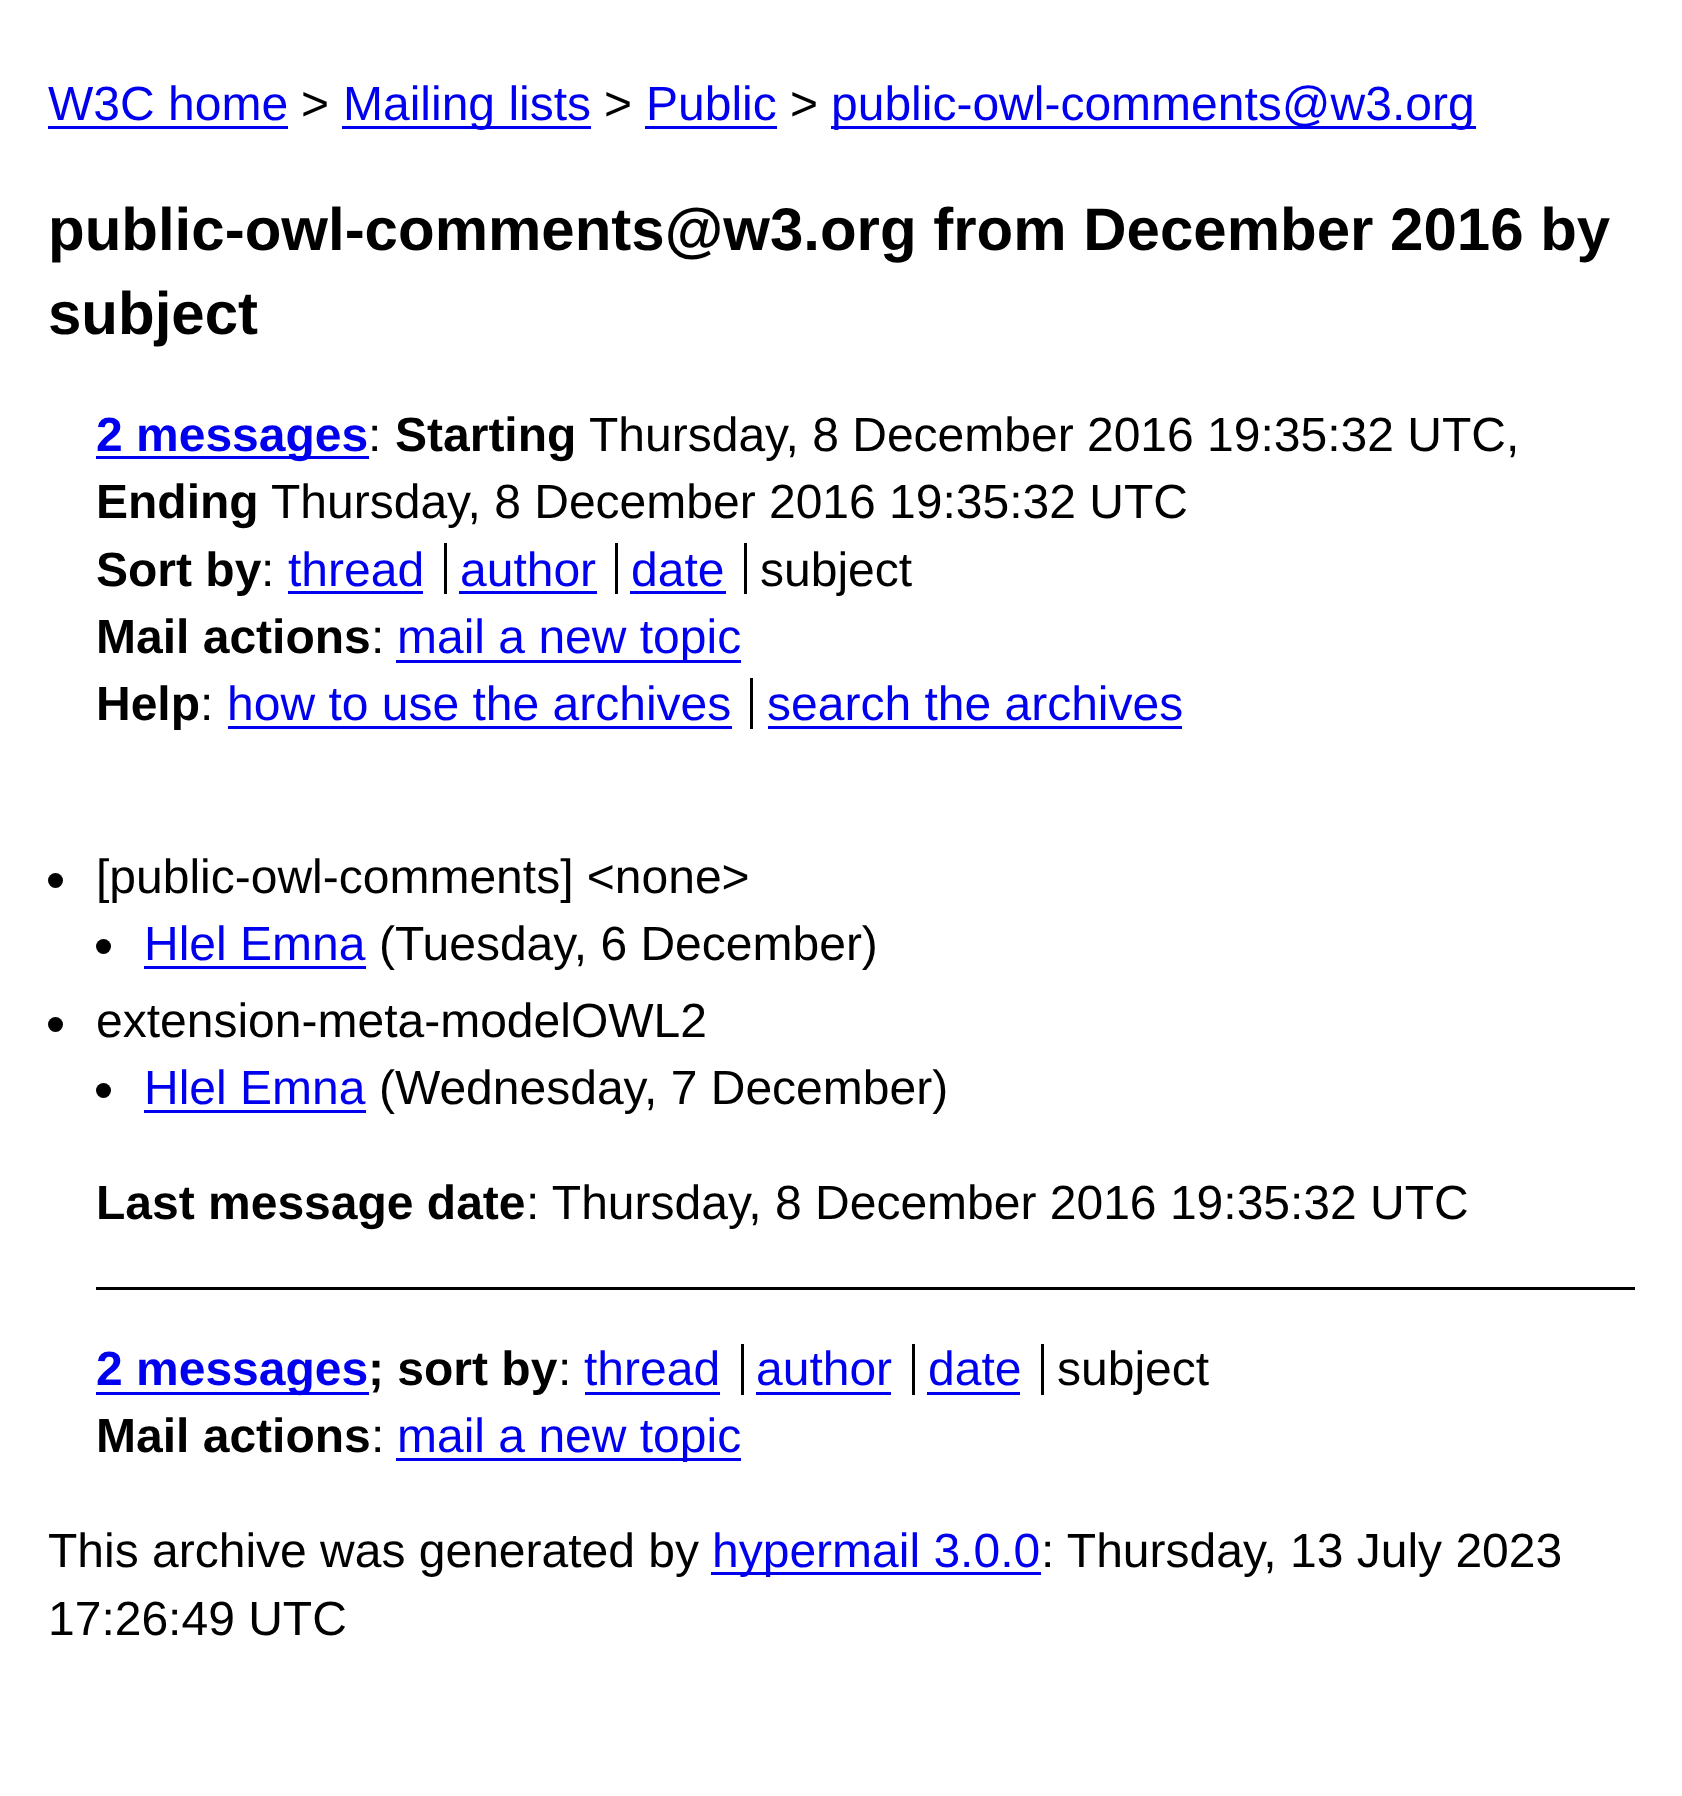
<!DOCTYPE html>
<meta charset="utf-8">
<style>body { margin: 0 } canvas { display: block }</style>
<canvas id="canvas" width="1682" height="1796"></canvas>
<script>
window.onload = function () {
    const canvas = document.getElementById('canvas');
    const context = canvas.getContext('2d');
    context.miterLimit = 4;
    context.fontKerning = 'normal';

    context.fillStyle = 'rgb(255, 255, 255)';
    context.fillRect(0, 0, 1682, 1796);
    context.fillStyle = 'rgb(0, 0, 238)';
    context.fillRect(48, 126, 240, 3);
    context.fillRect(342, 126, 249, 3);
    context.fillRect(645, 126, 132, 3);
    context.fillRect(831, 126, 645, 3);
    context.fillRect(96, 456, 273, 3);
    context.fillRect(288, 591, 135, 3);
    context.fillStyle = 'rgb(0, 0, 0)';
    context.fillRect(444, 543, 3, 51);
    context.fillStyle = 'rgb(0, 0, 238)';
    context.fillRect(459, 591, 138, 3);
    context.fillStyle = 'rgb(0, 0, 0)';
    context.fillRect(615, 543, 3, 51);
    context.fillRect(744, 543, 3, 51);
    context.fillStyle = 'rgb(0, 0, 238)';
    context.fillRect(630, 591, 96, 3);
    context.fillRect(396, 660, 345, 3);
    context.fillRect(228, 726, 504, 3);
    context.fillStyle = 'rgb(0, 0, 0)';
    context.fillRect(750, 678, 3, 51);
    context.fillStyle = 'rgb(0, 0, 238)';
    context.fillRect(768, 726, 414, 3);
    context.fillStyle = 'rgb(0, 0, 0)';
    context.fillRect(96, 1287, 1539, 3);
    context.beginPath();
    context.arc(55.5, 880.5, 7.5, 0, 2 * Math.PI);
    context.fill();
    context.beginPath();
    context.arc(103.5, 946.5, 7.5, 0, 2 * Math.PI);
    context.fill();
    context.fillStyle = 'rgb(0, 0, 238)';
    context.fillRect(144, 966, 222, 3);
    context.fillStyle = 'rgb(0, 0, 0)';
    context.beginPath();
    context.arc(55.5, 1024.5, 7.5, 0, 2 * Math.PI);
    context.fill();
    context.beginPath();
    context.arc(103.5, 1090.5, 7.5, 0, 2 * Math.PI);
    context.fill();
    context.fillStyle = 'rgb(0, 0, 238)';
    context.fillRect(144, 1110, 222, 3);
    context.fillRect(96, 1392, 273, 3);
    context.fillRect(585, 1392, 135, 3);
    context.fillStyle = 'rgb(0, 0, 0)';
    context.fillRect(741, 1344, 3, 51);
    context.fillStyle = 'rgb(0, 0, 238)';
    context.fillRect(756, 1392, 135, 3);
    context.fillStyle = 'rgb(0, 0, 0)';
    context.fillRect(912, 1344, 3, 51);
    context.fillStyle = 'rgb(0, 0, 238)';
    context.fillRect(927, 1392, 93, 3);
    context.fillStyle = 'rgb(0, 0, 0)';
    context.fillRect(1041, 1344, 3, 51);
    context.fillStyle = 'rgb(0, 0, 238)';
    context.fillRect(396, 1458, 345, 3);
    context.fillRect(711, 1572, 330, 3);
    context.font = '48px Liberation Sans';
    context.fillText('W3C home', 48, 120);
    context.fillStyle = 'rgb(0, 0, 0)';
    context.fillText('>', 301, 120);
    context.fillStyle = 'rgb(0, 0, 238)';
    context.fillText('Mailing lists', 343, 120);
    context.fillStyle = 'rgb(0, 0, 0)';
    context.fillText('>', 604, 120);
    context.fillStyle = 'rgb(0, 0, 238)';
    context.fillText('Public', 646, 120);
    context.fillStyle = 'rgb(0, 0, 0)';
    context.fillText('>', 790, 120);
    context.fillStyle = 'rgb(0, 0, 238)';
    context.fillText('public-owl-comments@w3.org', 831, 120);
    context.font = 'bold 60px Liberation Sans';
    context.fillStyle = 'rgb(0, 0, 0)';
    context.fillText('public-owl-comments@w3.org from December 2016 by', 48, 250);
    context.fillText('subject', 48, 334);
    context.font = 'bold 48px Liberation Sans';
    context.fillStyle = 'rgb(0, 0, 238)';
    context.fillText('2 messages', 96, 451);
    context.font = '48px Liberation Sans';
    context.fillStyle = 'rgb(0, 0, 0)';
    context.fillText(':', 368, 451);
    context.font = 'bold 48px Liberation Sans';
    context.fillText('Starting', 395, 451);
    context.font = '48px Liberation Sans';
    context.fillText('Thursday, 8 December 2016 19:35:32 UTC,', 589, 451);
    context.font = 'bold 48px Liberation Sans';
    context.fillText('Ending', 96, 518);
    context.font = '48px Liberation Sans';
    context.fillText('Thursday, 8 December 2016 19:35:32 UTC', 271, 518);
    context.font = 'bold 48px Liberation Sans';
    context.fillText('Sort by', 96, 586);
    context.font = '48px Liberation Sans';
    context.fillText(':', 261, 586);
    context.fillStyle = 'rgb(0, 0, 238)';
    context.fillText('thread', 288, 586);
    context.fillText('author', 460, 586);
    context.fillText('date', 631, 586);
    context.fillStyle = 'rgb(0, 0, 0)';
    context.fillText('subject', 760, 586);
    context.font = 'bold 48px Liberation Sans';
    context.fillText('Mail actions', 96, 653);
    context.font = '48px Liberation Sans';
    context.fillText(':', 371, 653);
    context.fillStyle = 'rgb(0, 0, 238)';
    context.fillText('mail a new topic', 397, 653);
    context.font = 'bold 48px Liberation Sans';
    context.fillStyle = 'rgb(0, 0, 0)';
    context.fillText('Help', 96, 720);
    context.font = '48px Liberation Sans';
    context.fillText(':', 200, 720);
    context.fillStyle = 'rgb(0, 0, 238)';
    context.fillText('how to use the archives', 227, 720);
    context.fillText('search the archives', 767, 720);
    context.fillStyle = 'rgb(0, 0, 0)';
    context.fillText('[public-owl-comments] <none>', 96, 893);
    context.fillStyle = 'rgb(0, 0, 238)';
    context.fillText('Hlel Emna', 144, 960);
    context.fillStyle = 'rgb(0, 0, 0)';
    context.fillText('(Tuesday, 6 December)', 379, 960);
    context.fillText('extension-meta-modelOWL2', 96, 1037);
    context.fillStyle = 'rgb(0, 0, 238)';
    context.fillText('Hlel Emna', 144, 1104);
    context.fillStyle = 'rgb(0, 0, 0)';
    context.fillText('(Wednesday, 7 December)', 379, 1104);
    context.font = 'bold 48px Liberation Sans';
    context.fillText('Last message date', 96, 1219);
    context.font = '48px Liberation Sans';
    context.fillText(': Thursday, 8 December 2016 19:35:32 UTC', 526, 1219);
    context.font = 'bold 48px Liberation Sans';
    context.fillStyle = 'rgb(0, 0, 238)';
    context.fillText('2 messages', 96, 1385);
    context.fillStyle = 'rgb(0, 0, 0)';
    context.fillText('; sort by', 368, 1385);
    context.font = '48px Liberation Sans';
    context.fillText(':', 558, 1385);
    context.fillStyle = 'rgb(0, 0, 238)';
    context.fillText('thread', 584, 1385);
    context.fillText('author', 756, 1385);
    context.fillText('date', 928, 1385);
    context.fillStyle = 'rgb(0, 0, 0)';
    context.fillText('subject', 1057, 1385);
    context.font = 'bold 48px Liberation Sans';
    context.fillText('Mail actions', 96, 1452);
    context.font = '48px Liberation Sans';
    context.fillText(':', 371, 1452);
    context.fillStyle = 'rgb(0, 0, 238)';
    context.fillText('mail a new topic', 397, 1452);
    context.fillStyle = 'rgb(0, 0, 0)';
    context.fillText('This archive was generated by', 48, 1567);
    context.fillStyle = 'rgb(0, 0, 238)';
    context.fillText('hypermail 3.0.0', 712, 1567);
    context.fillStyle = 'rgb(0, 0, 0)';
    context.fillText(': Thursday, 13 July 2023', 1041, 1567);
    context.fillText('17:26:49 UTC', 48, 1635);
};
</script>
